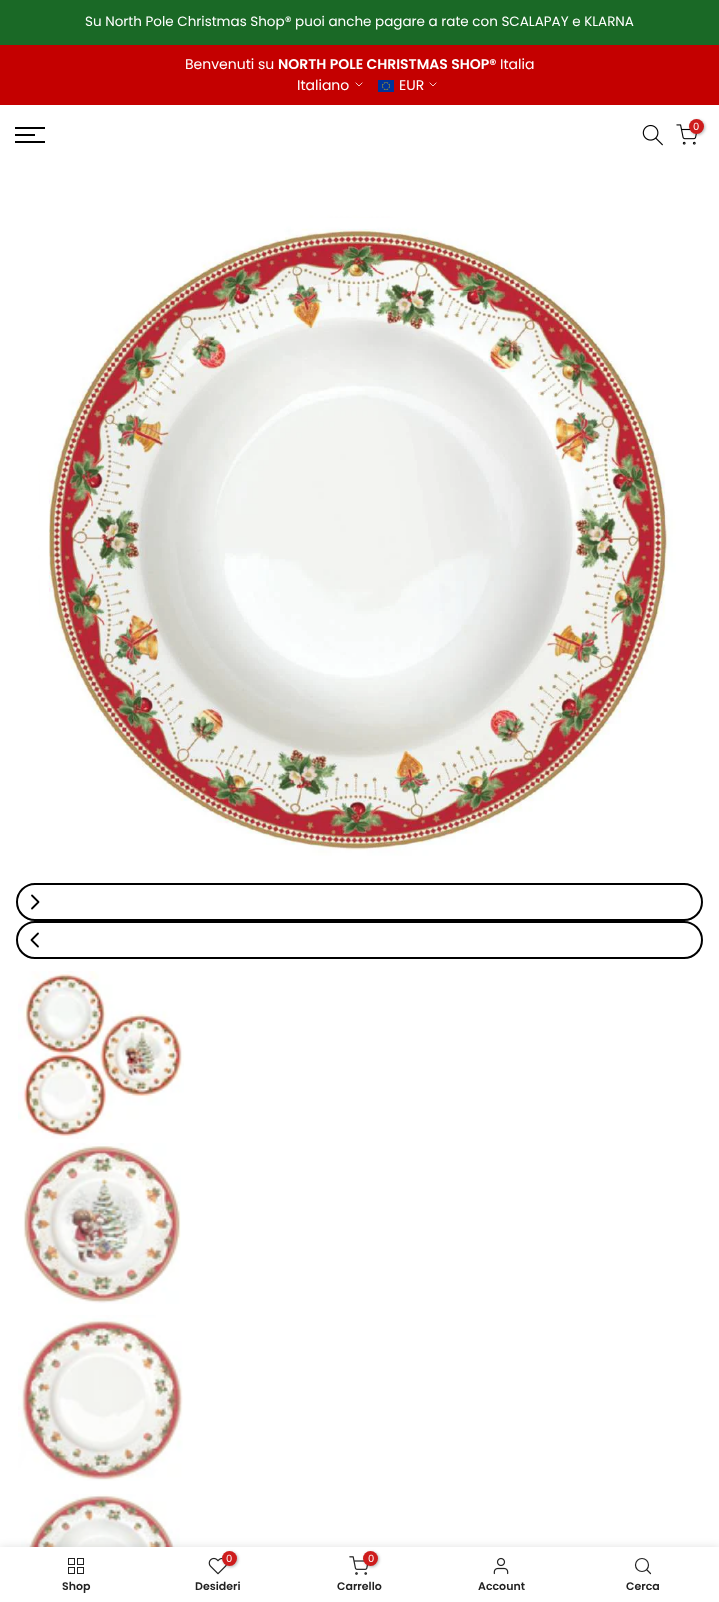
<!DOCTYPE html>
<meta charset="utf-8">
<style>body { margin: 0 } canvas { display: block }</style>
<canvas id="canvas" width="719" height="1602"></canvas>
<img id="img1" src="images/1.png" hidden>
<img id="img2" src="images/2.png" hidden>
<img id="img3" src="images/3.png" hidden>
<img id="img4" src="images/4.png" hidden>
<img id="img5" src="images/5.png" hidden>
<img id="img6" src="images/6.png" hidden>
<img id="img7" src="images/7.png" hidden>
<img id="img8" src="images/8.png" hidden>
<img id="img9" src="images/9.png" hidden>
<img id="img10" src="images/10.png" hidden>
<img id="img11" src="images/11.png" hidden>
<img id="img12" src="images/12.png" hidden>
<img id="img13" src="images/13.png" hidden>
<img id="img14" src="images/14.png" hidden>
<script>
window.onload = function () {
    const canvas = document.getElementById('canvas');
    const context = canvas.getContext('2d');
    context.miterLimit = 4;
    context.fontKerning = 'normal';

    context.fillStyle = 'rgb(255, 255, 255)';
    context.fillRect(0, 0, 719, 1602);
    context.fillStyle = 'rgb(26, 105, 38)';
    context.fillRect(0, 0, 719, 45);
    context.fillStyle = 'rgb(196, 0, 0)';
    context.fillRect(0, 45, 719, 60);
    context.beginPath();
    context.moveTo(362, 83);
    context.lineTo(359, 86);
    context.lineTo(356, 83);
    context.strokeStyle = 'rgb(255, 255, 255)';
    context.lineWidth = 0.8;
    context.lineCap = 'square';
    context.stroke();
    context.drawImage(document.getElementById('img1'), 378, 80, 16, 12);
    context.beginPath();
    context.moveTo(436, 83);
    context.lineTo(433, 86);
    context.lineTo(430, 83);
    context.stroke();
    context.drawImage(document.getElementById('img2'), 642, 124, 21, 22);
    context.drawImage(document.getElementById('img3'), 676, 124, 21, 21);
    context.fillStyle = 'rgba(0, 0, 0, 0.3)';
    context.filter = 'blur(1.5px)';
    context.beginPath();
    context.roundRect(690, 120, 15, 15, 7.5);
    context.fill();
    context.filter = 'none';
    context.fillStyle = 'rgb(206, 28, 28)';
    context.beginPath();
    context.arc(696.5, 126.5, 7.5, 0, 2 * Math.PI);
    context.fill();
    context.fillStyle = 'rgb(0, 0, 0)';
    context.fillRect(15, 127, 30, 2);
    context.fillRect(15, 134, 20, 2);
    context.fillRect(15, 141, 30, 2);
    context.drawImage(document.getElementById('img4'), 38, 207, 644, 660);
    context.drawImage(document.getElementById('img5'), 38, 207, 643, 659);
    context.drawImage(document.getElementById('img6'), 40, 218, 641, 648);
    context.beginPath();
    context.roundRect(17, 884, 685, 36, 18);
    context.strokeStyle = 'rgb(0, 0, 0)';
    context.lineWidth = 2;
    context.stroke();
    context.beginPath();
    context.roundRect(17, 922, 685, 36, 18);
    context.stroke();
    context.beginPath();
    context.moveTo(32, 895.5);
    context.lineTo(38.5, 902);
    context.lineTo(32, 908.5);
    context.moveTo(38, 946.5);
    context.lineTo(31.5, 940);
    context.lineTo(38, 933.5);
    context.lineWidth = 1.8;
    context.lineCap = 'round';
    context.lineJoin = 'round';
    context.stroke();
    context.drawImage(document.getElementById('img7'), 18, 971, 166, 168);
    context.drawImage(document.getElementById('img8'), 23, 1143, 158, 161);
    context.drawImage(document.getElementById('img9'), 18, 1315, 165, 166);
    context.drawImage(document.getElementById('img10'), 21, 1494, 159, 53);
    context.fillStyle = 'rgba(0, 0, 0, 0.12)';
    context.filter = 'blur(4.5px)';
    context.beginPath();
    context.rect(0, 1547, 719, 55);
    context.fill();
    context.filter = 'none';
    context.fillStyle = 'rgb(255, 255, 255)';
    context.fillRect(0, 1547, 719, 55);
    context.drawImage(document.getElementById('img11'), 68, 1558, 16, 16);
    context.drawImage(document.getElementById('img12'), 208, 1557, 19, 18);
    context.fillStyle = 'rgba(0, 0, 0, 0.3)';
    context.filter = 'blur(1.5px)';
    context.beginPath();
    context.roundRect(223, 1552, 15, 15, 7.5);
    context.fill();
    context.filter = 'none';
    context.fillStyle = 'rgb(206, 28, 28)';
    context.beginPath();
    context.arc(229.5, 1558.5, 7.5, 0, 2 * Math.PI);
    context.fill();
    context.drawImage(document.getElementById('img13'), 349, 1556, 19, 19);
    context.fillStyle = 'rgba(0, 0, 0, 0.3)';
    context.filter = 'blur(1.5px)';
    context.beginPath();
    context.roundRect(364, 1552, 15, 15, 7.5);
    context.fill();
    context.filter = 'none';
    context.fillStyle = 'rgb(206, 28, 28)';
    context.beginPath();
    context.arc(370.5, 1558.5, 7.5, 0, 2 * Math.PI);
    context.fill();
    context.drawImage(document.getElementById('img14'), 493, 1557, 16, 18);
    context.beginPath();
    context.arc(642, 1565, 6.5, 0, 2 * Math.PI);
    context.strokeStyle = 'rgb(34, 34, 34)';
    context.lineWidth = 1.2;
    context.stroke();
    context.beginPath();
    context.moveTo(650.5, 1573.5);
    context.lineTo(647, 1570);
    context.stroke();
    context.font = '13.5px Poppins';
    context.fillStyle = 'rgb(255, 255, 255)';
    context.fillText('Su North Pole Christmas Shop® puoi anche pagare a rate con SCALAPAY e KLARNA', 85, 26);
    context.font = '14px Poppins';
    context.fillText('Benvenuti su', 185, 69);
    context.font = '600 14px Poppins';
    context.fillText('NORTH POLE CHRISTMAS SHOP®', 278, 69);
    context.font = '14px Poppins';
    context.fillText('Italia', 500, 69);
    context.fillText('Italiano', 297, 90);
    context.fillText('EUR', 399, 90);
    context.font = '10px Poppins';
    context.fillText('0', 693, 130);
    context.font = '600 11px Poppins';
    context.fillStyle = 'rgb(34, 34, 34)';
    context.fillText('Shop', 62, 1590);
    context.font = '10px Poppins';
    context.fillStyle = 'rgb(255, 255, 255)';
    context.fillText('0', 226, 1562);
    context.font = '600 11px Poppins';
    context.fillStyle = 'rgb(34, 34, 34)';
    context.fillText('Desideri', 195, 1590);
    context.font = '10px Poppins';
    context.fillStyle = 'rgb(255, 255, 255)';
    context.fillText('0', 368, 1562);
    context.font = '600 11px Poppins';
    context.fillStyle = 'rgb(34, 34, 34)';
    context.fillText('Carrello', 337, 1590);
    context.fillText('Account', 478, 1590);
    context.fillText('Cerca', 626, 1590);
};
</script>
